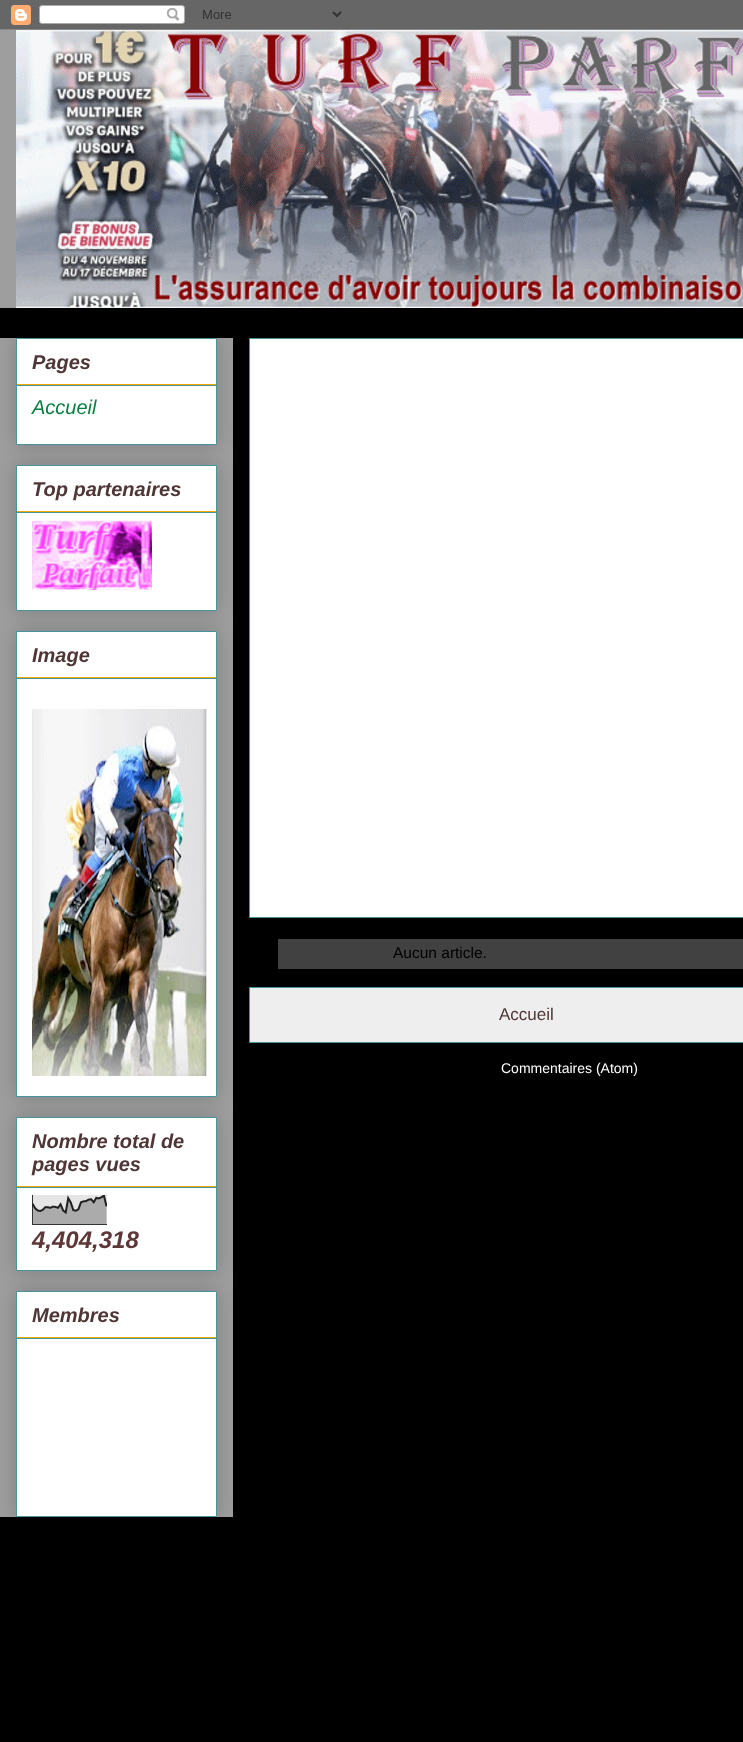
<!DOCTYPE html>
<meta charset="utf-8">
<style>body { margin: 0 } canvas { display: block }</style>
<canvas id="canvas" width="743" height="1742"></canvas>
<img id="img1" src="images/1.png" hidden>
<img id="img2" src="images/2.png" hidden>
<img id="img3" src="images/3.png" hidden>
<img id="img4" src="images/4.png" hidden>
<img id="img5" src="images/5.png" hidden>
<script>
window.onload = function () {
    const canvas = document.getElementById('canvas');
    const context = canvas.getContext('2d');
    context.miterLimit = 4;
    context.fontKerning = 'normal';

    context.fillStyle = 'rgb(0, 0, 0)';
    context.fillRect(0, 0, 743, 1742);
    context.drawImage(document.getElementById('img1'), 0, 0, 743, 30);
    context.fillStyle = 'rgb(158, 158, 158)';
    context.fillRect(0, 30, 16, 278);
    context.drawImage(document.getElementById('img2'), 16, 30, 727, 278);
    context.fillRect(0, 338, 233, 1179);
    context.fillStyle = 'rgba(0, 0, 0, 0.2)';
    context.filter = 'blur(10px)';
    context.beginPath();
    context.rect(16, 338, 201, 107);
    context.fill();
    context.filter = 'none';
    context.fillStyle = 'rgb(255, 255, 255)';
    context.beginPath();
    context.rect(16.5, 338.5, 200, 106);
    context.fill();
    context.strokeStyle = 'rgb(70, 149, 156)';
    context.stroke();
    context.fillStyle = 'rgb(244, 169, 0)';
    context.fillRect(17, 384, 199, 1);
    context.fillStyle = 'rgb(70, 149, 156)';
    context.fillRect(17, 385, 199, 1);
    context.fillStyle = 'rgba(0, 0, 0, 0.2)';
    context.filter = 'blur(10px)';
    context.beginPath();
    context.rect(16, 465, 201, 146);
    context.fill();
    context.filter = 'none';
    context.fillStyle = 'rgb(255, 255, 255)';
    context.beginPath();
    context.rect(16.5, 465.5, 200, 145);
    context.fill();
    context.stroke();
    context.fillStyle = 'rgb(244, 169, 0)';
    context.fillRect(17, 511, 199, 1);
    context.fillStyle = 'rgb(70, 149, 156)';
    context.fillRect(17, 512, 199, 1);
    context.drawImage(document.getElementById('img3'), 32, 520, 120, 70);
    context.fillStyle = 'rgba(0, 0, 0, 0.2)';
    context.filter = 'blur(10px)';
    context.beginPath();
    context.rect(16, 631, 201, 466);
    context.fill();
    context.filter = 'none';
    context.fillStyle = 'rgb(255, 255, 255)';
    context.beginPath();
    context.rect(16.5, 631.5, 200, 465);
    context.fill();
    context.stroke();
    context.fillStyle = 'rgb(244, 169, 0)';
    context.fillRect(17, 677, 199, 1);
    context.fillStyle = 'rgb(70, 149, 156)';
    context.fillRect(17, 678, 199, 1);
    context.drawImage(document.getElementById('img4'), 32, 709, 176, 367);
    context.fillStyle = 'rgba(0, 0, 0, 0.2)';
    context.filter = 'blur(10px)';
    context.beginPath();
    context.rect(16, 1117, 201, 154);
    context.fill();
    context.filter = 'none';
    context.fillStyle = 'rgb(255, 255, 255)';
    context.beginPath();
    context.rect(16.5, 1117.5, 200, 153);
    context.fill();
    context.stroke();
    context.fillStyle = 'rgb(244, 169, 0)';
    context.fillRect(17, 1186, 199, 1);
    context.fillStyle = 'rgb(70, 149, 156)';
    context.fillRect(17, 1187, 199, 1);
    context.drawImage(document.getElementById('img5'), 32, 1195, 75, 30);
    context.fillStyle = 'rgba(0, 0, 0, 0.2)';
    context.filter = 'blur(10px)';
    context.beginPath();
    context.rect(16, 1291, 201, 226);
    context.fill();
    context.filter = 'none';
    context.fillStyle = 'rgb(255, 255, 255)';
    context.beginPath();
    context.rect(16.5, 1291.5, 200, 225);
    context.fill();
    context.stroke();
    context.fillStyle = 'rgb(244, 169, 0)';
    context.fillRect(17, 1337, 199, 1);
    context.fillStyle = 'rgb(70, 149, 156)';
    context.fillRect(17, 1338, 199, 1);
    context.fillStyle = 'rgb(255, 255, 255)';
    context.beginPath();
    context.rect(249.5, 338.5, 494, 579);
    context.fill();
    context.stroke();
    context.fillStyle = 'rgb(65, 65, 65)';
    context.fillRect(278, 939, 465, 30);
    context.fillStyle = 'rgb(238, 238, 238)';
    context.beginPath();
    context.rect(249.5, 987.5, 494, 55);
    context.fill();
    context.stroke();
    context.font = 'italic bold 20px Liberation Sans';
    context.fillStyle = 'rgb(79, 54, 54)';
    context.fillText('Pages', 32, 369);
    context.font = 'italic 20px Liberation Sans';
    context.fillStyle = 'rgb(11, 128, 67)';
    context.fillText('Accueil', 32, 414);
    context.font = 'italic bold 20px Liberation Sans';
    context.fillStyle = 'rgb(79, 54, 54)';
    context.fillText('Top partenaires', 32, 496);
    context.fillText('Image', 32, 662);
    context.fillText('Nombre total de', 32, 1148);
    context.fillText('pages vues', 32, 1171);
    context.font = 'italic bold 24px Liberation Sans';
    context.fillStyle = 'rgb(94, 56, 56)';
    context.fillText('4,404,318', 32, 1248);
    context.font = 'italic bold 20px Liberation Sans';
    context.fillStyle = 'rgb(79, 54, 54)';
    context.fillText('Membres', 32, 1322);
    context.font = '15.5px Liberation Sans';
    context.fillStyle = 'rgb(0, 0, 0)';
    context.fillText('Aucun article.', 393, 958);
    context.font = '17px Liberation Sans';
    context.fillStyle = 'rgb(79, 54, 54)';
    context.fillText('Accueil', 499, 1020);
    context.font = '14px Liberation Sans';
    context.fillStyle = 'rgb(255, 255, 255)';
    context.fillText('Commentaires (Atom)', 501, 1073);
};
</script>
